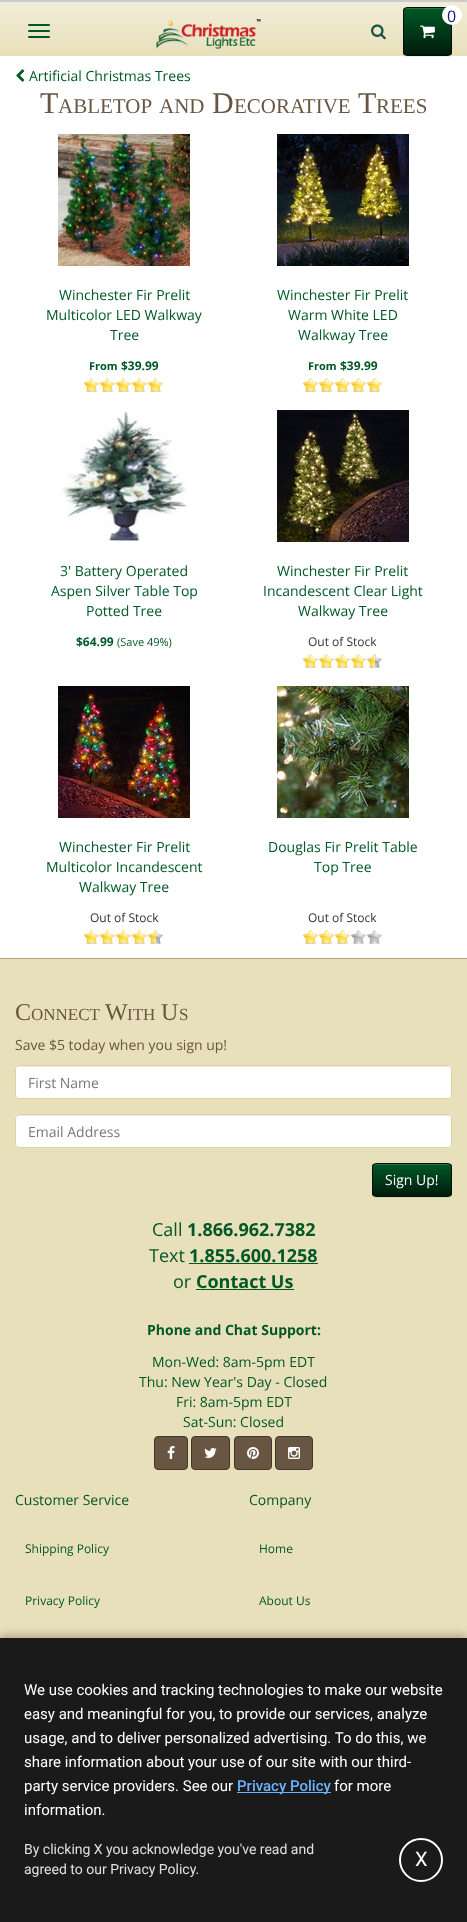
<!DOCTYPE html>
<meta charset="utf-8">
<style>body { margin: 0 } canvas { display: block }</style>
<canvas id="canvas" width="467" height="1922"></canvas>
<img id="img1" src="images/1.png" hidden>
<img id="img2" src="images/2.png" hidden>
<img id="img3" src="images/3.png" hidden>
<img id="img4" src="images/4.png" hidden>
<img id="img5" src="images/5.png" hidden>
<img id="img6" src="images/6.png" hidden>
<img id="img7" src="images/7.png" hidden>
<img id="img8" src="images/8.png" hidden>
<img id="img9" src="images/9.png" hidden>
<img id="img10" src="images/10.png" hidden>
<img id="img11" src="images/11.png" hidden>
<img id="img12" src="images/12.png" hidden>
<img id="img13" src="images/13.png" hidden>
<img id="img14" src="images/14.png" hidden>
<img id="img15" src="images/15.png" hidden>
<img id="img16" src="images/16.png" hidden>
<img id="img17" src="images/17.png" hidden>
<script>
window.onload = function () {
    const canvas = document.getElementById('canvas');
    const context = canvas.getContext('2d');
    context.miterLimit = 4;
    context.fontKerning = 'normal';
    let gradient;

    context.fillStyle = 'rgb(255, 255, 255)';
    context.fillRect(0, 0, 467, 1922);
    gradient = context.createLinearGradient(234, 0, 234, 56);
    gradient.addColorStop(0, 'rgb(242, 237, 216)');
    gradient.addColorStop(1, 'rgb(232, 223, 187)');
    context.fillStyle = gradient;
    context.fillRect(0, 2, 467, 54);
    context.fillStyle = 'rgb(204, 204, 204)';
    context.fillRect(0, 0, 467, 2);
    context.fillStyle = 'rgba(0, 0, 0, 0.07)';
    context.filter = 'blur(0.5px)';
    context.beginPath();
    context.roundRect(403, 8, 49, 49, 4);
    context.fill();
    context.filter = 'none';
    context.save();
    context.beginPath();
    context.roundRect(403, 7, 49, 49, 4);
    context.clip();
    gradient = context.createLinearGradient(428, 8, 428, 55);
    gradient.addColorStop(0, 'rgb(0, 88, 38)');
    gradient.addColorStop(1, 'rgb(0, 27, 12)');
    context.fillStyle = gradient;
    context.fillRect(403, 8, 49, 47);
    context.restore();
    context.fillStyle = 'rgb(38, 112, 71)';
    context.beginPath();
    context.moveTo(407, 9);
    context.lineTo(448, 9);
    context.bezierCurveTo(450, 9, 451, 10, 451, 12);
    context.bezierCurveTo(451, 6, 445, 8, 441, 8);
    context.lineTo(414, 8);
    context.bezierCurveTo(410, 8, 404, 6, 404, 12);
    context.bezierCurveTo(404, 10, 405, 9, 407, 9);
    context.closePath();
    context.fill();
    context.beginPath();
    context.roundRect(403.5, 7.5, 48, 48, 3.5);
    context.strokeStyle = 'rgb(0, 17, 7)';
    context.stroke();
    context.fillStyle = 'rgb(255, 255, 255)';
    context.beginPath();
    context.arc(452, 15, 10, 0, 2 * Math.PI);
    context.fill();
    context.drawImage(document.getElementById('img1'), 420, 25, 15, 14);
    context.fillStyle = 'rgb(0, 88, 38)';
    context.beginPath();
    context.roundRect(28, 24, 22, 2, 1);
    context.fill();
    context.beginPath();
    context.roundRect(28, 30, 22, 2, 1);
    context.fill();
    context.beginPath();
    context.roundRect(28, 36, 22, 2, 1);
    context.fill();
    context.drawImage(document.getElementById('img2'), 156, 19, 105, 30);
    context.drawImage(document.getElementById('img3'), 371, 24, 15, 16);
    context.drawImage(document.getElementById('img4'), 16, 69, 9, 13);
    context.drawImage(document.getElementById('img5'), 58, 134, 132, 132);
    context.drawImage(document.getElementById('img6'), 84, 378, 79, 14);
    context.drawImage(document.getElementById('img7'), 277, 134, 132, 132);
    context.drawImage(document.getElementById('img6'), 303, 378, 79, 14);
    context.drawImage(document.getElementById('img8'), 60, 411, 128, 131);
    context.drawImage(document.getElementById('img9'), 277, 410, 132, 132);
    context.drawImage(document.getElementById('img10'), 303, 654, 79, 14);
    context.drawImage(document.getElementById('img11'), 58, 686, 132, 132);
    context.drawImage(document.getElementById('img10'), 84, 930, 79, 14);
    context.drawImage(document.getElementById('img12'), 277, 686, 132, 132);
    context.drawImage(document.getElementById('img13'), 303, 930, 79, 14);
    context.fillStyle = 'rgb(232, 223, 187)';
    context.fillRect(0, 959, 467, 679);
    context.fillStyle = 'rgb(179, 165, 128)';
    context.fillRect(0, 958, 467, 1);
    context.fillStyle = 'rgb(255, 255, 255)';
    context.beginPath();
    context.roundRect(15, 1065, 437, 34, 4);
    context.fill();
    context.fillStyle = 'rgb(236, 236, 236)';
    context.beginPath();
    context.moveTo(19, 1067);
    context.lineTo(448, 1067);
    context.bezierCurveTo(450, 1067, 451, 1068, 451, 1070);
    context.bezierCurveTo(451, 1068, 450, 1066, 448, 1066);
    context.lineTo(18, 1066);
    context.lineTo(16, 1068);
    context.lineTo(16, 1070);
    context.bezierCurveTo(16, 1068, 17, 1067, 19, 1067);
    context.closePath();
    context.fill();
    context.beginPath();
    context.roundRect(15.5, 1065.5, 436, 33, 3.5);
    context.strokeStyle = 'rgb(222, 210, 158)';
    context.stroke();
    context.fillStyle = 'rgb(255, 255, 255)';
    context.beginPath();
    context.roundRect(15, 1114, 437, 34, 4);
    context.fill();
    context.fillStyle = 'rgb(236, 236, 236)';
    context.beginPath();
    context.moveTo(19, 1116);
    context.lineTo(448, 1116);
    context.bezierCurveTo(450, 1116, 451, 1117, 451, 1119);
    context.bezierCurveTo(451, 1117, 450, 1115, 448, 1115);
    context.lineTo(18, 1115);
    context.lineTo(16, 1117);
    context.lineTo(16, 1119);
    context.bezierCurveTo(16, 1117, 17, 1116, 19, 1116);
    context.closePath();
    context.fill();
    context.beginPath();
    context.roundRect(15.5, 1114.5, 436, 33, 3.5);
    context.stroke();
    context.fillStyle = 'rgba(0, 0, 0, 0.07)';
    context.filter = 'blur(0.5px)';
    context.beginPath();
    context.roundRect(372, 1164, 80, 34, 4);
    context.fill();
    context.filter = 'none';
    context.save();
    context.beginPath();
    context.roundRect(372, 1163, 80, 34, 4);
    context.clip();
    gradient = context.createLinearGradient(412, 1164, 412, 1196);
    gradient.addColorStop(0, 'rgb(0, 88, 38)');
    gradient.addColorStop(1, 'rgb(0, 27, 12)');
    context.fillStyle = gradient;
    context.fillRect(372, 1164, 80, 32);
    context.restore();
    context.fillStyle = 'rgb(38, 112, 71)';
    context.beginPath();
    context.moveTo(376, 1165);
    context.lineTo(448, 1165);
    context.bezierCurveTo(450, 1165, 451, 1166, 451, 1168);
    context.bezierCurveTo(451, 1161, 440, 1164, 436, 1164);
    context.lineTo(388, 1164);
    context.bezierCurveTo(384, 1164, 373, 1161, 373, 1168);
    context.bezierCurveTo(373, 1166, 374, 1165, 376, 1165);
    context.closePath();
    context.fill();
    context.beginPath();
    context.roundRect(372.5, 1163.5, 79, 33, 3.5);
    context.strokeStyle = 'rgb(0, 17, 7)';
    context.stroke();
    context.fillStyle = 'rgb(0, 88, 38)';
    context.fillRect(189, 1263, 129, 1);
    context.fillRect(196, 1289, 98, 1);
    context.fillStyle = 'rgb(104, 86, 66)';
    context.beginPath();
    context.roundRect(154.5, 1436.5, 33, 33, 3.5);
    context.fill();
    context.strokeStyle = 'rgb(68, 56, 43)';
    context.stroke();
    context.drawImage(document.getElementById('img14'), 167, 1446, 8, 13);
    context.beginPath();
    context.roundRect(191.5, 1436.5, 38, 33, 3.5);
    context.fill();
    context.stroke();
    context.drawImage(document.getElementById('img15'), 204, 1448, 13, 10);
    context.beginPath();
    context.roundRect(234.5, 1436.5, 37, 33, 3.5);
    context.fill();
    context.stroke();
    context.drawImage(document.getElementById('img16'), 247, 1447, 12, 12);
    context.beginPath();
    context.roundRect(275.5, 1436.5, 37, 33, 3.5);
    context.fill();
    context.stroke();
    context.drawImage(document.getElementById('img17'), 288, 1447, 12, 12);
    context.fillStyle = 'rgba(0, 0, 0, 0.3)';
    context.filter = 'blur(5px)';
    context.beginPath();
    context.rect(0, 1636, 467, 284);
    context.fill();
    context.filter = 'none';
    context.fillStyle = 'rgb(26, 26, 26)';
    context.fillRect(0, 1638, 467, 284);
    context.fillStyle = 'rgb(107, 179, 255)';
    context.fillRect(237, 1792, 94, 1);
    context.beginPath();
    context.arc(421, 1860, 21, 0, 2 * Math.PI);
    context.strokeStyle = 'rgb(255, 255, 255)';
    context.lineWidth = 2;
    context.stroke();
    context.font = '16px Open Sans';
    context.fillStyle = 'rgb(20, 24, 122)';
    context.fillText('0', 447, 22);
    context.font = '14px Open Sans';
    context.fillStyle = 'rgb(0, 88, 38)';
    context.fillText('Artificial Christmas Trees', 29, 81);
    context.font = '30px Liberation Serif';
    context.fillStyle = 'rgb(104, 86, 66)';
    context.fillText('T', 40, 113);
    context.font = '21px Liberation Serif';
    context.fillText('ABLETOP', 58, 113);
    context.fillText('AND', 159, 113);
    context.font = '30px Liberation Serif';
    context.fillText('D', 212, 113);
    context.font = '21px Liberation Serif';
    context.fillText('ECORATIVE', 234, 113);
    context.font = '30px Liberation Serif';
    context.fillText('T', 358, 113);
    context.font = '21px Liberation Serif';
    context.fillText('REES', 376, 113);
    context.font = '14px Open Sans';
    context.fillStyle = 'rgb(0, 88, 38)';
    context.fillText('Winchester Fir Prelit', 59, 300);
    context.fillText('Multicolor LED Walkway', 46, 320);
    context.fillText('Tree', 110, 340);
    context.font = 'bold 11px Open Sans';
    context.fillText('From', 89, 370);
    context.font = 'bold 12px Open Sans';
    context.fillText('$39.99', 121, 370);
    context.font = '14px Open Sans';
    context.fillText('Winchester Fir Prelit', 277, 300);
    context.fillText('Warm White LED', 288, 320);
    context.fillText('Walkway Tree', 298, 340);
    context.font = 'bold 11px Open Sans';
    context.fillText('From', 308, 370);
    context.font = 'bold 12px Open Sans';
    context.fillText('$39.99', 340, 370);
    context.font = '14px Open Sans';
    context.fillText('3\' Battery Operated', 60, 576);
    context.fillText('Aspen Silver Table Top', 51, 596);
    context.fillText('Potted Tree', 86, 616);
    context.font = 'bold 12px Open Sans';
    context.fillText('$64.99', 76, 646);
    context.font = '11px Open Sans';
    context.fillText('(Save 49%)', 117, 646);
    context.font = '14px Open Sans';
    context.fillText('Winchester Fir Prelit', 277, 576);
    context.fillText('Incandescent Clear Light', 263, 596);
    context.fillText('Walkway Tree', 298, 616);
    context.font = '12px Open Sans';
    context.fillStyle = 'rgb(51, 51, 51)';
    context.fillText('Out of Stock', 308, 646);
    context.font = '14px Open Sans';
    context.fillStyle = 'rgb(0, 88, 38)';
    context.fillText('Winchester Fir Prelit', 59, 852);
    context.fillText('Multicolor Incandescent', 46, 872);
    context.fillText('Walkway Tree', 79, 892);
    context.font = '12px Open Sans';
    context.fillStyle = 'rgb(51, 51, 51)';
    context.fillText('Out of Stock', 90, 922);
    context.font = '14px Open Sans';
    context.fillStyle = 'rgb(0, 88, 38)';
    context.fillText('Douglas Fir Prelit Table', 268, 852);
    context.fillText('Top Tree', 314, 872);
    context.font = '12px Open Sans';
    context.fillStyle = 'rgb(51, 51, 51)';
    context.fillText('Out of Stock', 308, 922);
    context.font = '24px Liberation Serif';
    context.fillStyle = 'rgb(104, 86, 66)';
    context.fillText('C', 15, 1020);
    context.font = '17px Liberation Serif';
    context.fillText('ONNECT', 31, 1020);
    context.font = '24px Liberation Serif';
    context.fillText('W', 105, 1020);
    context.font = '17px Liberation Serif';
    context.fillText('ITH', 127, 1020);
    context.font = '24px Liberation Serif';
    context.fillText('U', 161, 1020);
    context.font = '17px Liberation Serif';
    context.fillText('S', 179, 1020);
    context.font = '14px Open Sans';
    context.fillText('Save $5 today when you sign up!', 15, 1050);
    context.fillStyle = 'rgb(119, 119, 119)';
    context.fillText('First Name', 28, 1088);
    context.fillText('Email Address', 28, 1137);
    context.fillStyle = 'rgb(255, 255, 255)';
    context.fillText('Sign Up!', 385, 1185);
    context.font = '18px Open Sans';
    context.fillStyle = 'rgb(0, 88, 38)';
    context.fillText('Call', 152, 1236);
    context.font = 'bold 18px Open Sans';
    context.fillText('1.866.962.7382', 187, 1236);
    context.font = '18px Open Sans';
    context.fillText('Text', 149, 1262);
    context.font = 'bold 18px Open Sans';
    context.fillText('1.855.600.1258', 189, 1262);
    context.font = '18px Open Sans';
    context.fillText('or', 173, 1288);
    context.font = 'bold 18px Open Sans';
    context.fillText('Contact Us', 196, 1288);
    context.font = 'bold 14px Open Sans';
    context.fillText('Phone and Chat Support:', 147, 1335);
    context.font = '14px Open Sans';
    context.fillText('Mon-Wed: 8am-5pm EDT', 152, 1367);
    context.fillText('Thu: New Year\'s Day - Closed', 139, 1387);
    context.fillText('Fri: 8am-5pm EDT', 176, 1407);
    context.fillText('Sat-Sun: Closed', 183, 1427);
    context.fillText('Customer Service', 15, 1505);
    context.font = '12px Open Sans';
    context.fillText('Shipping Policy', 25, 1553);
    context.fillText('Privacy Policy', 25, 1605);
    context.font = '14px Open Sans';
    context.fillText('Company', 249, 1505);
    context.font = '12px Open Sans';
    context.fillText('Home', 259, 1553);
    context.fillText('About Us', 259, 1605);
    context.font = '15px Roboto';
    context.fillStyle = 'rgb(255, 255, 255)';
    context.fillText('We use cookies and tracking technologies to make our website', 24, 1695);
    context.fillText('easy and meaningful for you, to provide our services, analyze', 24, 1719);
    context.fillText('usage, and to deliver personalized advertising. To do this, we', 24, 1743);
    context.fillText('share information about your use of our site with our third-', 24, 1767);
    context.fillText('party service providers. See our', 24, 1791);
    context.font = '500 15px Roboto';
    context.fillStyle = 'rgb(107, 179, 255)';
    context.fillText('Privacy Policy', 237, 1791);
    context.font = '15px Roboto';
    context.fillStyle = 'rgb(255, 255, 255)';
    context.fillText('for more', 334, 1791);
    context.fillText('information.', 24, 1815);
    context.font = '14px Roboto';
    context.fillStyle = 'rgb(224, 224, 224)';
    context.fillText('By clicking X you acknowledge you\'ve read and', 24, 1854);
    context.fillText('agreed to our Privacy Policy.', 24, 1874);
    context.font = '20px Roboto';
    context.fillStyle = 'rgb(255, 255, 255)';
    context.fillText('X', 415, 1866);
};
</script>
